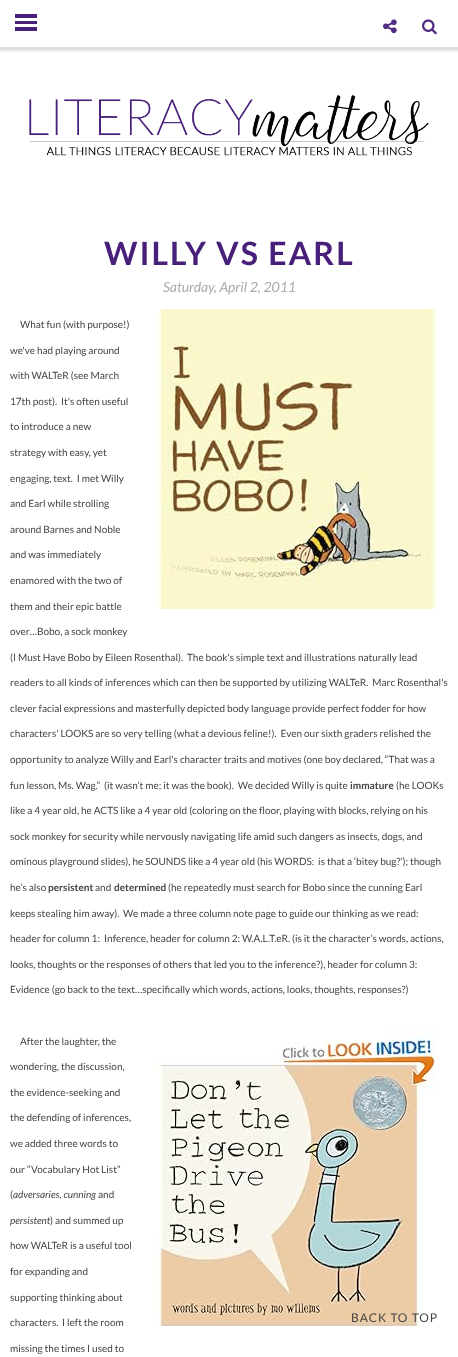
<!DOCTYPE html>
<meta charset="utf-8">
<style>body { margin: 0 } canvas { display: block }</style>
<canvas id="canvas" width="458" height="1357"></canvas>
<img id="img1" src="images/1.png" hidden>
<img id="img2" src="images/2.png" hidden>
<img id="img3" src="images/3.png" hidden>
<img id="img4" src="images/4.png" hidden>
<img id="img5" src="images/5.png" hidden>
<script>
window.onload = function () {
    const canvas = document.getElementById('canvas');
    const context = canvas.getContext('2d');
    context.miterLimit = 4;
    context.fontKerning = 'normal';

    context.fillStyle = 'rgb(255, 255, 255)';
    context.fillRect(0, 0, 458, 1357);
    context.fillStyle = 'rgb(222, 222, 222)';
    context.filter = 'blur(1px)';
    context.beginPath();
    context.rect(-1, -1, 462, 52);
    context.fill();
    context.filter = 'none';
    context.fillStyle = 'rgb(255, 255, 255)';
    context.fillRect(0, 0, 458, 47);
    context.fillStyle = 'rgb(72, 32, 122)';
    context.fillRect(15, 14, 22, 4);
    context.fillRect(15, 21, 22, 3);
    context.fillRect(15, 27, 22, 4);
    context.drawImage(document.getElementById('img1'), 383, 19, 14, 15);
    context.drawImage(document.getElementById('img2'), 422, 19, 15, 16);
    context.drawImage(document.getElementById('img3'), 29, 95, 400, 61);
    context.drawImage(document.getElementById('img4'), 158, 309, 279, 300);
    context.drawImage(document.getElementById('img5'), 151, 1026, 285, 300);
    context.letterSpacing = '2px';
    context.font = 'bold 32px Lato';
    context.fillText('WILLY VS EARL', 104, 265);
    context.letterSpacing = '0px';
    context.font = 'italic 14px Lato';
    context.fillStyle = 'rgb(169, 169, 169)';
    context.fillText('Saturday, April 2, 2011', 163, 292);
    context.font = '10px Lato';
    context.fillStyle = 'rgb(68, 68, 68)';
    context.fillText('What fun (with purpose!)', 20, 328);
    context.fillText('we\'ve had playing around', 10, 354);
    context.fillText('with WALTeR (see March', 10, 379);
    context.fillText('17th post).  It\'s often useful', 10, 405);
    context.fillText('to introduce a new', 10, 430);
    context.fillText('strategy with easy, yet', 10, 456);
    context.fillText('engaging, text.  I met Willy', 10, 482);
    context.fillText('and Earl while strolling', 10, 507);
    context.fillText('around Barnes and Noble', 10, 533);
    context.fillText('and was immediately', 10, 558);
    context.fillText('enamored with the two of', 10, 584);
    context.fillText('them and their epic battle', 10, 610);
    context.fillText('over…Bobo, a sock monkey', 10, 635);
    context.fillText('(I Must Have Bobo by Eileen Rosenthal).  The book\'s simple text and illustrations naturally lead', 10, 661);
    context.fillText('readers to all kinds of inferences which can then be supported by utilizing WALTeR.  Marc Rosenthal\'s', 10, 686);
    context.fillText('clever facial expressions and masterfully depicted body language provide perfect fodder for how', 10, 712);
    context.fillText('characters\' LOOKS are so very telling (what a devious feline!).  Even our sixth graders relished the', 10, 737);
    context.fillText('opportunity to analyze Willy and Earl\'s character traits and motives (one boy declared, “That was a', 10, 763);
    context.fillText('fun lesson, Ms. Wag.”', 10, 789);
    context.fillText('(it wasn’t me; it was the book).  We decided Willy is quite', 104, 789);
    context.font = 'bold 10px Lato';
    context.fillText('immature', 350, 789);
    context.font = '10px Lato';
    context.fillText('(he LOOKs', 396, 789);
    context.fillText('like a 4 year old, he ACTS like a 4 year old (coloring on the floor, playing with blocks, relying on his', 10, 814);
    context.fillText('sock monkey for security while nervously navigating life amid such dangers as insects, dogs, and', 10, 840);
    context.fillText('ominous playground slides), he SOUNDS like a 4 year old (his WORDS:  is that a ‘bitey bug?’); though', 10, 865);
    context.fillText('he’s also', 10, 891);
    context.font = 'bold 10px Lato';
    context.fillText('persistent', 48, 891);
    context.font = '10px Lato';
    context.fillText('and', 95, 891);
    context.font = 'bold 10px Lato';
    context.fillText('determined', 114, 891);
    context.font = '10px Lato';
    context.fillText('(he repeatedly must search for Bobo since the cunning Earl', 168, 891);
    context.fillText('keeps stealing him away).', 10, 917);
    context.fillText('We made a three column note page to guide our thinking as we read:', 123, 917);
    context.fillText('header for column 1:', 10, 942);
    context.fillText('Inference, header for column 2: W.A.L.T.eR. (is it the character’s words, actions,', 104, 942);
    context.fillText('looks, thoughts or the responses of others that led you to the inference?), header for column 3:', 10, 968);
    context.fillText('Evidence (go back to the text…specifically which words, actions, looks, thoughts, responses?)', 10, 993);
    context.fillText('After the laughter, the', 20, 1045);
    context.fillText('wondering, the discussion,', 10, 1070);
    context.fillText('the evidence-seeking and', 10, 1096);
    context.fillText('the defending of inferences,', 10, 1121);
    context.fillText('we added three words to', 10, 1147);
    context.fillText('our “Vocabulary Hot List”', 10, 1173);
    context.fillText('(', 10, 1198);
    context.font = 'italic 10px Lato';
    context.fillText('adversaries, cunning', 13, 1198);
    context.font = '10px Lato';
    context.fillText('and', 98, 1198);
    context.font = 'italic 10px Lato';
    context.fillText('persistent', 10, 1224);
    context.font = '10px Lato';
    context.fillText(') and summed up', 50, 1224);
    context.fillText('how WALTeR is a useful tool', 10, 1249);
    context.fillText('for expanding and', 10, 1275);
    context.fillText('supporting thinking about', 10, 1301);
    context.fillText('characters.', 10, 1326);
    context.fillText('I left the room', 62, 1326);
    context.fillText('missing the times I used to', 10, 1352);
    context.letterSpacing = '1px';
    context.font = '12px Lato';
    context.fillText('BACK TO TOP', 351, 1322);
};
</script>
